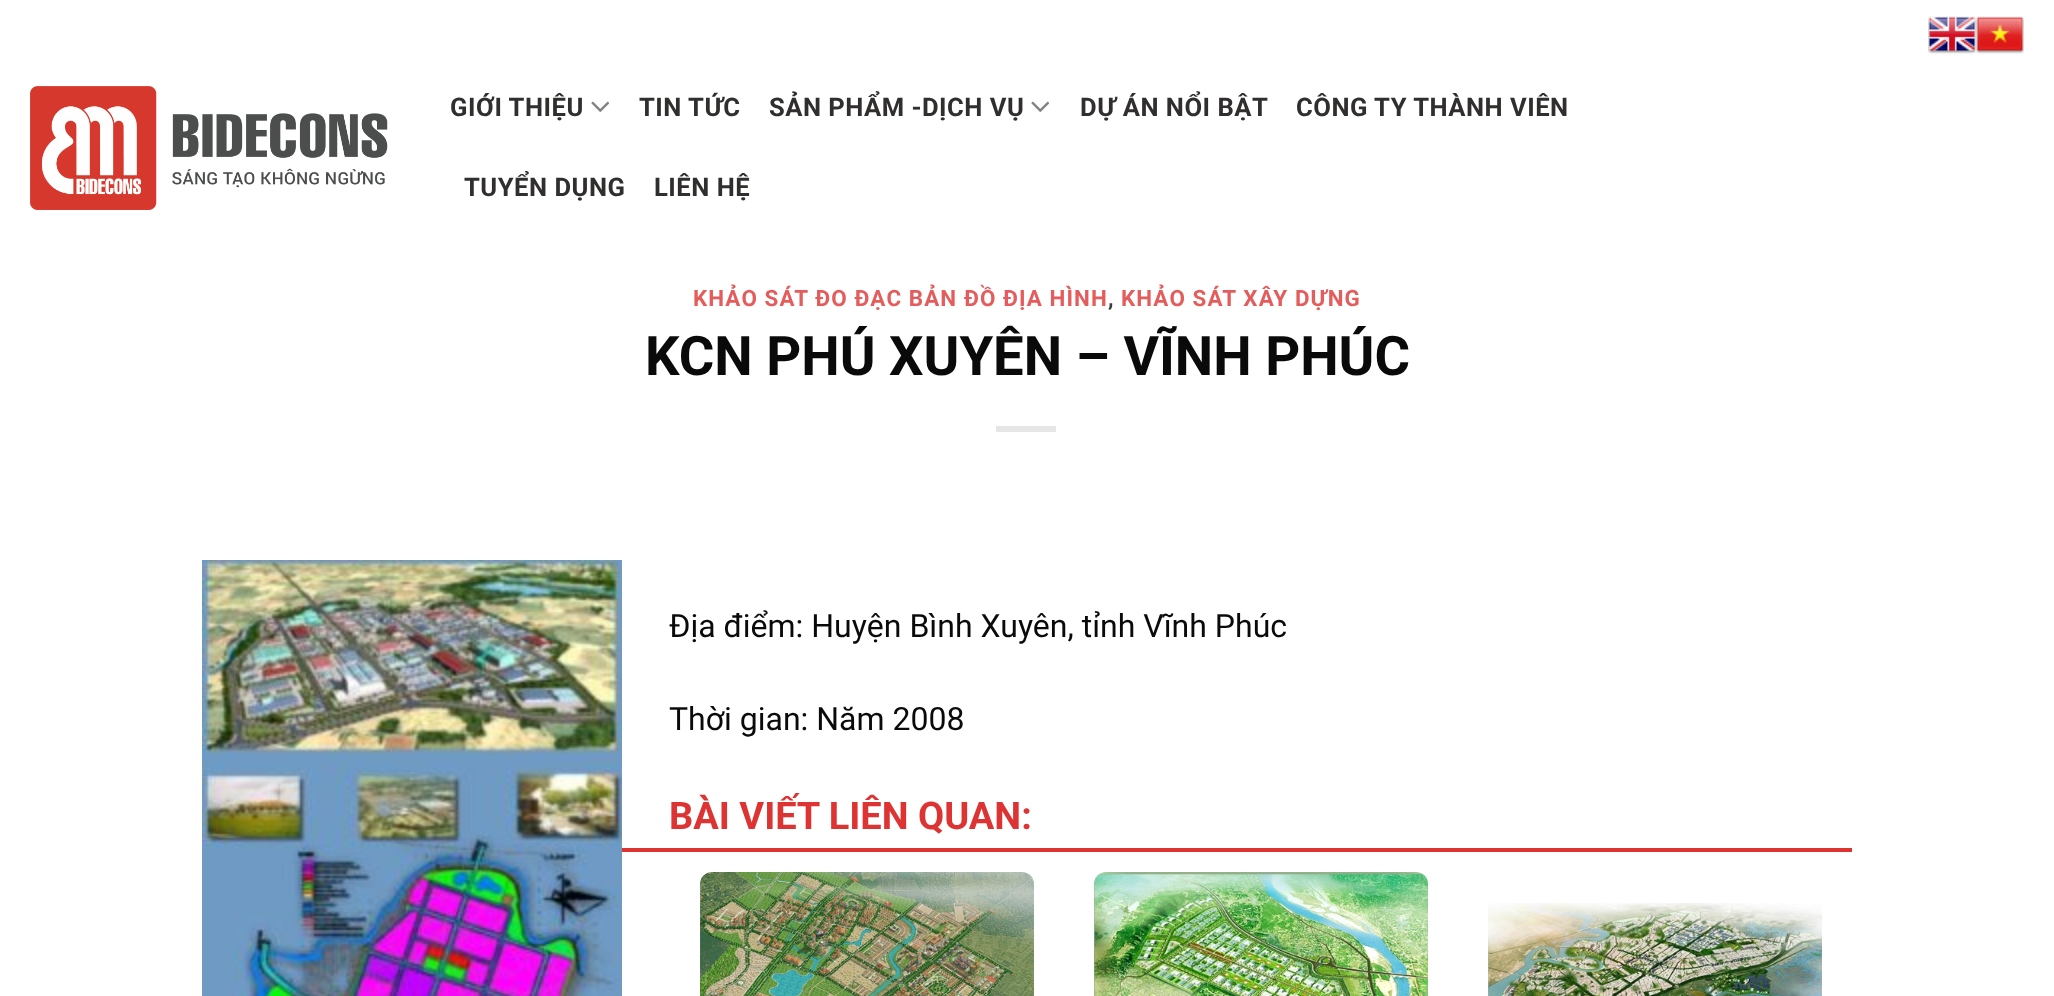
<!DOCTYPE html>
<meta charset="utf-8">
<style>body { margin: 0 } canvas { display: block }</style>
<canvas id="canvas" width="2054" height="996"></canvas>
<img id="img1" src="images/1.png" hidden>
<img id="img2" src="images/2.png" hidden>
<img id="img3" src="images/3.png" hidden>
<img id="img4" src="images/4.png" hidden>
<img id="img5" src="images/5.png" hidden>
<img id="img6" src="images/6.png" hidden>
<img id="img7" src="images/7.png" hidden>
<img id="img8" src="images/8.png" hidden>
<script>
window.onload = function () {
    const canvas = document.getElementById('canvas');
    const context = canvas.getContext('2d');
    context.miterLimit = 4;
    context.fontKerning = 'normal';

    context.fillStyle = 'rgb(255, 255, 255)';
    context.fillRect(0, 0, 2054, 996);
    context.drawImage(document.getElementById('img1'), 1928, 16, 48, 38);
    context.drawImage(document.getElementById('img2'), 1976, 16, 48, 38);
    context.drawImage(document.getElementById('img3'), 30, 86, 358, 124);
    context.drawImage(document.getElementById('img4'), 591, 101, 19, 11);
    context.drawImage(document.getElementById('img4'), 1031, 101, 19, 11);
    context.fillStyle = 'rgb(230, 230, 230)';
    context.fillRect(996, 426, 60, 6);
    context.drawImage(document.getElementById('img5'), 202, 560, 420, 436);
    context.fillStyle = 'rgb(221, 51, 51)';
    context.fillRect(622, 848, 1230, 4);
    context.drawImage(document.getElementById('img6'), 700, 872, 334, 124);
    context.drawImage(document.getElementById('img7'), 1094, 872, 334, 124);
    context.drawImage(document.getElementById('img8'), 1488, 902, 334, 94);
    context.letterSpacing = '0.5px';
    context.font = 'bold 25.6px Roboto';
    context.fillStyle = 'rgb(49, 46, 46)';
    context.fillText('GIỚI THIỆU', 450, 116);
    context.fillText('TIN TỨC', 639, 116);
    context.fillText('SẢN PHẨM -DỊCH VỤ', 769, 116);
    context.fillText('DỰ ÁN NỔI BẬT', 1080, 116);
    context.fillText('CÔNG TY THÀNH VIÊN', 1296, 116);
    context.fillText('TUYỂN DỤNG', 464, 196);
    context.fillText('LIÊN HỆ', 654, 196);
    context.letterSpacing = '1.1px';
    context.font = 'bold 22.4px Roboto';
    context.fillStyle = 'rgb(228, 92, 92)';
    context.fillText('KHẢO SÁT ĐO ĐẠC BẢN ĐỒ ĐỊA HÌNH', 693, 306);
    context.fillStyle = 'rgb(59, 59, 59)';
    context.fillText(',', 1108, 306);
    context.fillStyle = 'rgb(228, 92, 92)';
    context.fillText('KHẢO SÁT XÂY DỰNG', 1121, 306);
    context.letterSpacing = '0px';
    context.font = 'bold 54.4px Roboto';
    context.fillStyle = 'rgb(10, 10, 10)';
    context.fillText('KCN PHÚ XUYÊN – VĨNH PHÚC', 645, 375);
    context.font = '32px Roboto';
    context.fillText('Địa điểm: Huyện Bình Xuyên, tỉnh Vĩnh Phúc', 669, 637);
    context.fillText('Thời gian: Năm 2008', 669, 730);
    context.font = 'bold 38px Roboto';
    context.fillStyle = 'rgb(221, 51, 51)';
    context.fillText('BÀI VIẾT LIÊN QUAN:', 669, 829);
};
</script>
